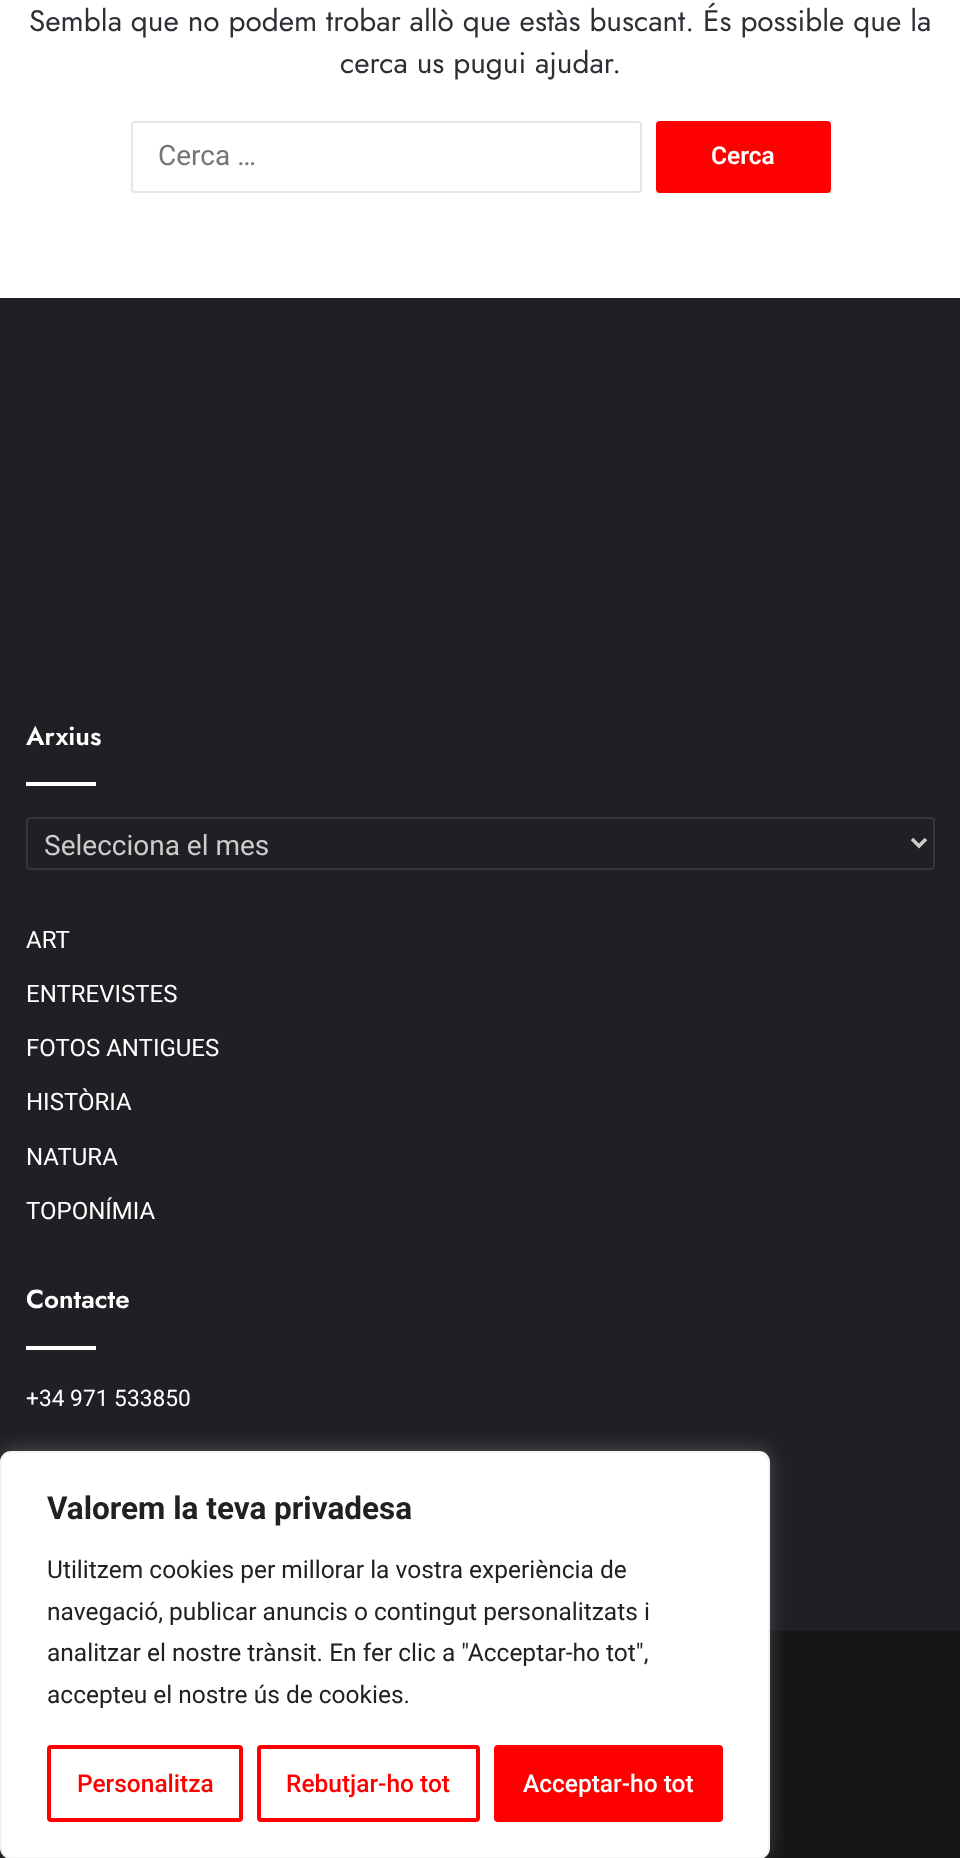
<!DOCTYPE html>
<meta charset="utf-8">
<style>body { margin: 0 } canvas { display: block }</style>
<canvas id="canvas" width="960" height="1858"></canvas>
<script>
window.onload = function () {
    const canvas = document.getElementById('canvas');
    const context = canvas.getContext('2d');
    context.miterLimit = 4;
    context.fontKerning = 'normal';

    context.fillStyle = 'rgb(255, 255, 255)';
    context.fillRect(0, 0, 960, 1858);
    context.beginPath();
    context.roundRect(132, 122, 509, 70, 3);
    context.strokeStyle = 'rgb(230, 230, 230)';
    context.lineWidth = 2;
    context.stroke();
    context.fillStyle = 'rgb(255, 0, 0)';
    context.beginPath();
    context.roundRect(656, 121, 175, 72, 4);
    context.fill();
    context.fillStyle = 'rgb(31, 32, 36)';
    context.fillRect(0, 298, 960, 1333);
    context.fillStyle = 'rgb(255, 255, 255)';
    context.fillRect(26, 782, 70, 4);
    context.beginPath();
    context.roundRect(27, 818, 907, 51, 3);
    context.strokeStyle = 'rgb(53, 54, 58)';
    context.stroke();
    context.beginPath();
    context.moveTo(912, 839);
    context.lineTo(919, 846);
    context.lineTo(926, 839);
    context.strokeStyle = 'rgb(204, 204, 204)';
    context.lineWidth = 3.5;
    context.stroke();
    context.fillRect(26, 1346, 70, 4);
    context.fillStyle = 'rgb(22, 22, 25)';
    context.fillRect(0, 1631, 960, 227);
    context.fillStyle = 'rgba(172, 171, 171, 0.3)';
    context.filter = 'blur(9px)';
    context.beginPath();
    context.roundRect(0, 1449, 770, 408, 11);
    context.fill();
    context.filter = 'none';
    context.fillStyle = 'rgb(255, 255, 255)';
    context.beginPath();
    context.roundRect(1, 1452, 768, 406, 10);
    context.fill();
    context.strokeStyle = 'rgb(244, 244, 244)';
    context.lineWidth = 2;
    context.stroke();
    context.beginPath();
    context.roundRect(49, 1747, 192, 73, 2);
    context.strokeStyle = 'rgb(255, 0, 0)';
    context.lineWidth = 4;
    context.stroke();
    context.beginPath();
    context.roundRect(259, 1747, 219, 73, 2);
    context.stroke();
    context.fillStyle = 'rgb(255, 0, 0)';
    context.beginPath();
    context.roundRect(496, 1747, 225, 73, 2);
    context.fill();
    context.stroke();
    context.font = '29.75px Jost';
    context.fillStyle = 'rgb(44, 47, 52)';
    context.fillText('Sembla que no podem trobar allò que estàs buscant. És possible que la', 29, 31);
    context.fillText('cerca us pugui ajudar.', 340, 73);
    context.font = '28px Roboto';
    context.fillStyle = 'rgb(117, 117, 117)';
    context.fillText('Cerca …', 158, 165);
    context.font = '600 24.5px Roboto';
    context.fillStyle = 'rgb(255, 255, 255)';
    context.fillText('Cerca', 711, 164);
    context.font = '600 26px Jost';
    context.fillText('Arxius', 26, 745);
    context.font = '28px Roboto';
    context.fillStyle = 'rgb(204, 204, 204)';
    context.fillText('Selecciona el mes', 44, 855);
    context.font = '24px Roboto';
    context.fillStyle = 'rgb(255, 255, 255)';
    context.fillText('ART', 26, 948);
    context.fillText('ENTREVISTES', 26, 1002);
    context.fillText('FOTOS ANTIGUES', 26, 1056);
    context.fillText('HISTÒRIA', 26, 1110);
    context.fillText('NATURA', 26, 1165);
    context.fillText('TOPONÍMIA', 26, 1219);
    context.font = '600 26px Jost';
    context.fillText('Contacte', 26, 1308);
    context.font = '22.75px Roboto';
    context.fillText('+34 971 533850', 26, 1406);
    context.font = 'bold 31.5px Roboto';
    context.fillStyle = 'rgb(33, 33, 33)';
    context.fillText('Valorem la teva privadesa', 47, 1519);
    context.font = '24.5px Roboto';
    context.fillText('Utilitzem cookies per millorar la vostra experiència de', 47, 1578);
    context.fillText('navegació, publicar anuncis o contingut personalitzats i', 47, 1620);
    context.fillText('analitzar el nostre trànsit. En fer clic a "Acceptar-ho tot",', 47, 1661);
    context.fillText('accepteu el nostre ús de cookies.', 47, 1703);
    context.font = '500 24.5px Roboto';
    context.fillStyle = 'rgb(255, 0, 0)';
    context.fillText('Personalitza', 77, 1792);
    context.fillText('Rebutjar-ho tot', 286, 1792);
    context.fillStyle = 'rgb(255, 255, 255)';
    context.fillText('Acceptar-ho tot', 523, 1792);
};
</script>
